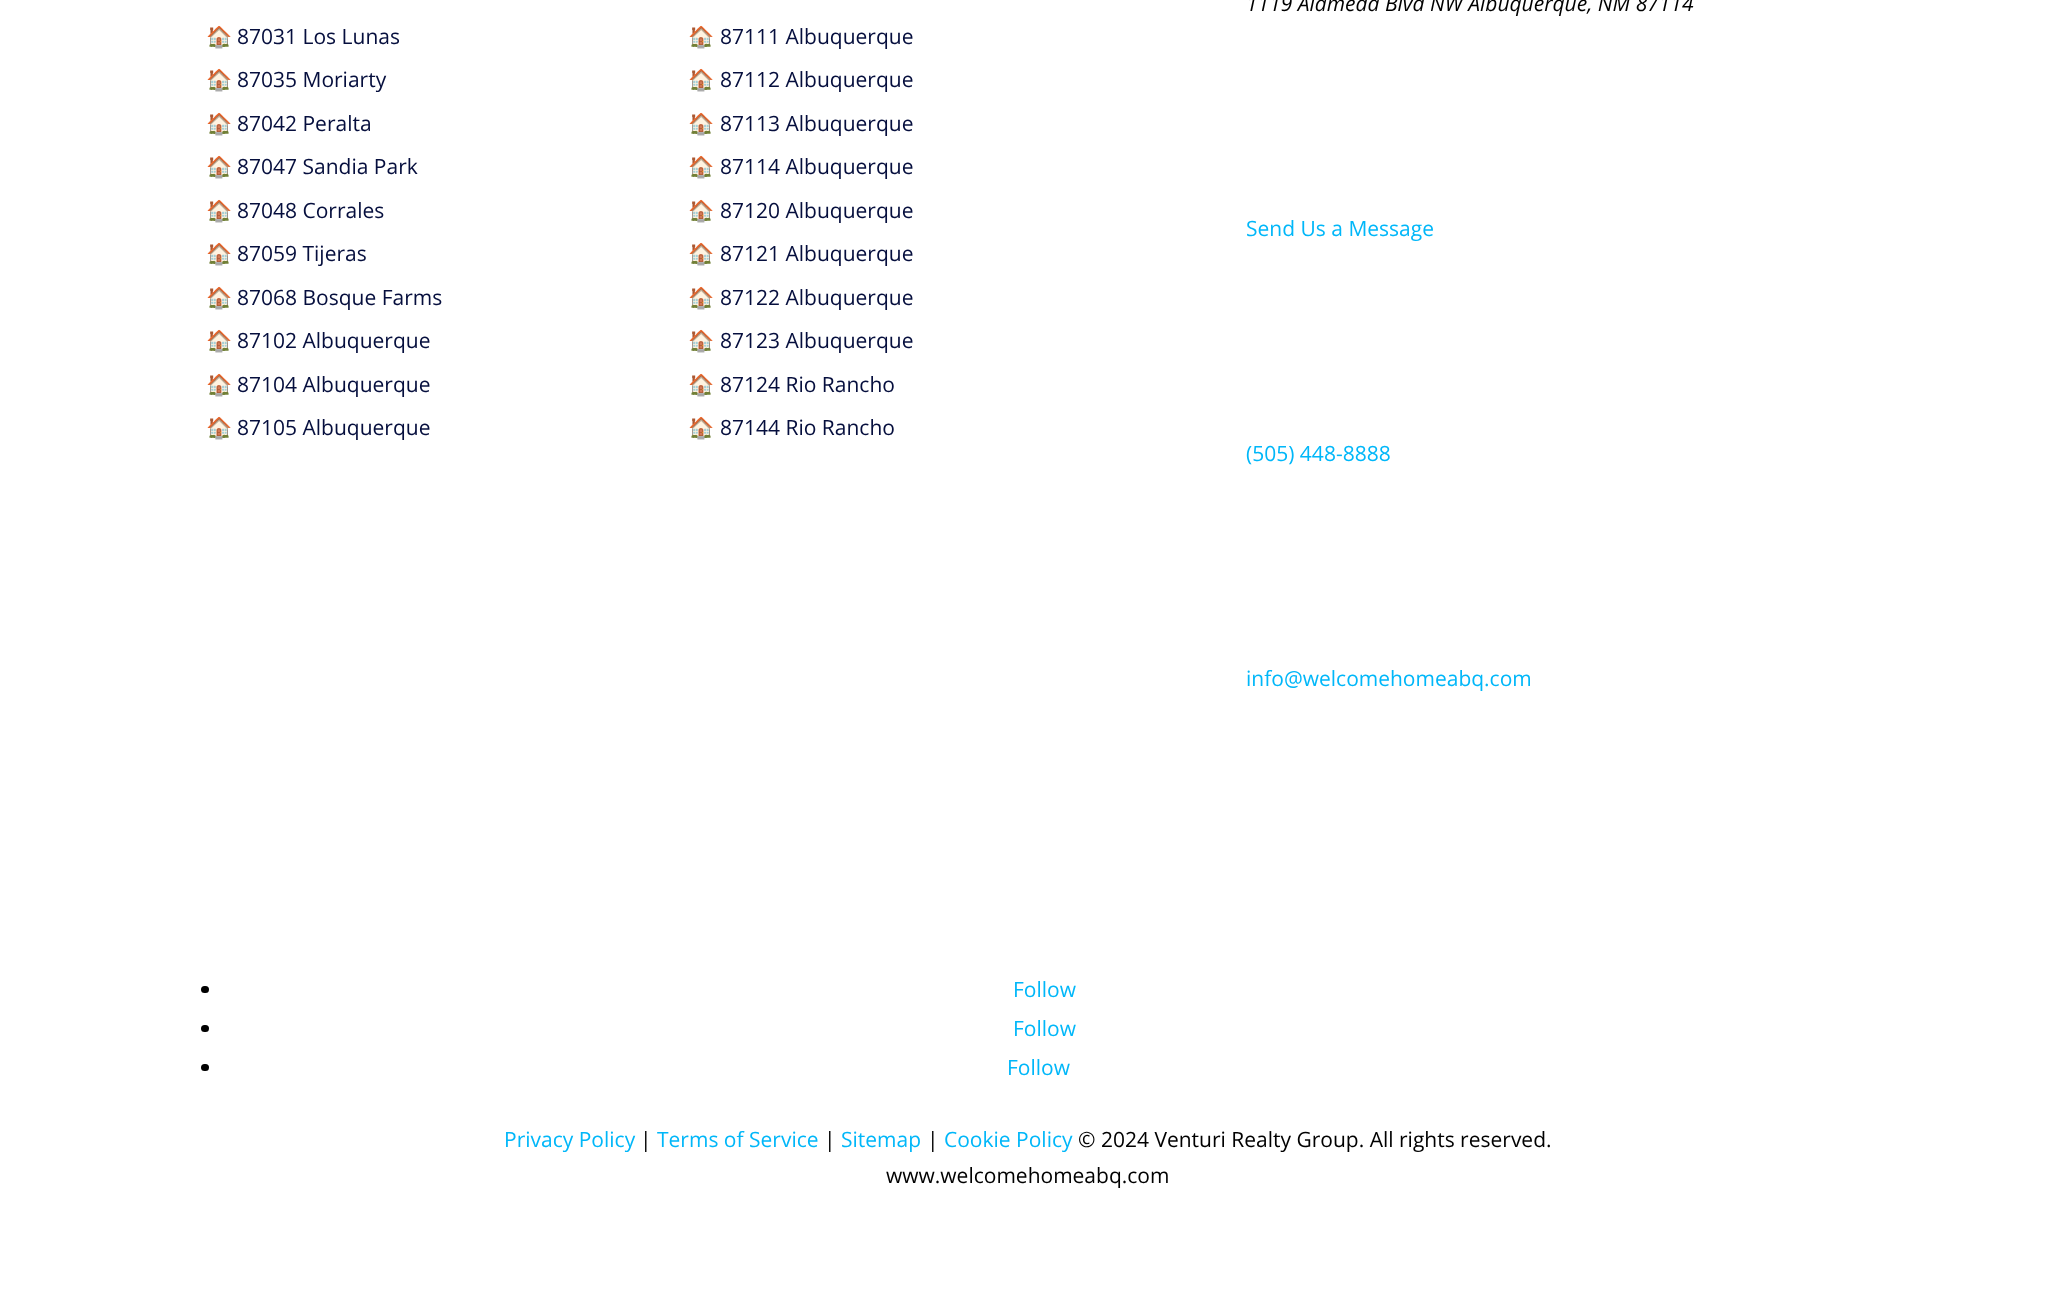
<!DOCTYPE html>
<meta charset="utf-8">
<style>body { margin: 0 } canvas { display: block }</style>
<canvas id="canvas" width="2054" height="1296"></canvas>
<script>
window.onload = function () {
    const canvas = document.getElementById('canvas');
    const context = canvas.getContext('2d');
    context.miterLimit = 4;
    context.fontKerning = 'normal';

    context.fillStyle = 'rgb(255, 255, 255)';
    context.fillRect(0, 0, 2054, 1296);
    context.fillStyle = 'rgb(0, 0, 0)';
    context.beginPath();
    context.roundRect(201, 986, 8, 7, 3.5);
    context.fill();
    context.beginPath();
    context.roundRect(201, 1025, 8, 7, 3.5);
    context.fill();
    context.beginPath();
    context.roundRect(201, 1064, 8, 7, 3.5);
    context.fill();
    context.font = '21px Noto Color Emoji';
    context.fillStyle = 'rgb(5, 14, 61)';
    context.fillText('🏠', 206, 44);
    context.font = '21px Open Sans';
    context.fillText('87031 Los Lunas', 237, 44);
    context.font = '21px Noto Color Emoji';
    context.fillText('🏠', 206, 87);
    context.font = '21px Open Sans';
    context.fillText('87035 Moriarty', 237, 87);
    context.font = '21px Noto Color Emoji';
    context.fillText('🏠', 206, 131);
    context.font = '21px Open Sans';
    context.fillText('87042 Peralta', 237, 131);
    context.font = '21px Noto Color Emoji';
    context.fillText('🏠', 206, 174);
    context.font = '21px Open Sans';
    context.fillText('87047 Sandia Park', 237, 174);
    context.font = '21px Noto Color Emoji';
    context.fillText('🏠', 206, 218);
    context.font = '21px Open Sans';
    context.fillText('87048 Corrales', 237, 218);
    context.font = '21px Noto Color Emoji';
    context.fillText('🏠', 206, 261);
    context.font = '21px Open Sans';
    context.fillText('87059 Tijeras', 237, 261);
    context.font = '21px Noto Color Emoji';
    context.fillText('🏠', 206, 305);
    context.font = '21px Open Sans';
    context.fillText('87068 Bosque Farms', 237, 305);
    context.font = '21px Noto Color Emoji';
    context.fillText('🏠', 206, 348);
    context.font = '21px Open Sans';
    context.fillText('87102 Albuquerque', 237, 348);
    context.font = '21px Noto Color Emoji';
    context.fillText('🏠', 206, 392);
    context.font = '21px Open Sans';
    context.fillText('87104 Albuquerque', 237, 392);
    context.font = '21px Noto Color Emoji';
    context.fillText('🏠', 206, 435);
    context.font = '21px Open Sans';
    context.fillText('87105 Albuquerque', 237, 435);
    context.font = '21px Noto Color Emoji';
    context.fillText('🏠', 688, 44);
    context.font = '21px Open Sans';
    context.fillText('87111 Albuquerque', 720, 44);
    context.font = '21px Noto Color Emoji';
    context.fillText('🏠', 688, 87);
    context.font = '21px Open Sans';
    context.fillText('87112 Albuquerque', 720, 87);
    context.font = '21px Noto Color Emoji';
    context.fillText('🏠', 688, 131);
    context.font = '21px Open Sans';
    context.fillText('87113 Albuquerque', 720, 131);
    context.font = '21px Noto Color Emoji';
    context.fillText('🏠', 688, 174);
    context.font = '21px Open Sans';
    context.fillText('87114 Albuquerque', 720, 174);
    context.font = '21px Noto Color Emoji';
    context.fillText('🏠', 688, 218);
    context.font = '21px Open Sans';
    context.fillText('87120 Albuquerque', 720, 218);
    context.font = '21px Noto Color Emoji';
    context.fillText('🏠', 688, 261);
    context.font = '21px Open Sans';
    context.fillText('87121 Albuquerque', 720, 261);
    context.font = '21px Noto Color Emoji';
    context.fillText('🏠', 688, 305);
    context.font = '21px Open Sans';
    context.fillText('87122 Albuquerque', 720, 305);
    context.font = '21px Noto Color Emoji';
    context.fillText('🏠', 688, 348);
    context.font = '21px Open Sans';
    context.fillText('87123 Albuquerque', 720, 348);
    context.font = '21px Noto Color Emoji';
    context.fillText('🏠', 688, 392);
    context.font = '21px Open Sans';
    context.fillText('87124 Rio Rancho', 720, 392);
    context.font = '21px Noto Color Emoji';
    context.fillText('🏠', 688, 435);
    context.font = '21px Open Sans';
    context.fillText('87144 Rio Rancho', 720, 435);
    context.font = 'italic 21px Open Sans';
    context.fillStyle = 'rgb(0, 0, 0)';
    context.fillText('1119 Alameda Blvd NW Albuquerque, NM 87114', 1246, 11);
    context.font = '21px Open Sans';
    context.fillStyle = 'rgb(0, 183, 249)';
    context.fillText('Send Us a Message', 1246, 236);
    context.fillText('(505) 448-8888', 1246, 461);
    context.fillText('info@welcomehomeabq.com', 1246, 686);
    context.fillText('Follow', 1013, 997);
    context.fillText('Follow', 1013, 1036);
    context.fillText('Follow', 1007, 1075);
    context.fillText('Privacy Policy', 504, 1147);
    context.fillStyle = 'rgb(0, 0, 0)';
    context.fillText('|', 640, 1147);
    context.fillStyle = 'rgb(0, 183, 249)';
    context.fillText('Terms of Service', 657, 1147);
    context.fillStyle = 'rgb(0, 0, 0)';
    context.fillText('|', 824, 1147);
    context.fillStyle = 'rgb(0, 183, 249)';
    context.fillText('Sitemap', 841, 1147);
    context.fillStyle = 'rgb(0, 0, 0)';
    context.fillText('|', 927, 1147);
    context.fillStyle = 'rgb(0, 183, 249)';
    context.fillText('Cookie Policy', 944, 1147);
    context.fillStyle = 'rgb(0, 0, 0)';
    context.fillText('© 2024 Venturi Realty Group. All rights reserved.', 1078, 1147);
    context.fillText('www.welcomehomeabq.com', 886, 1183);
};
</script>
